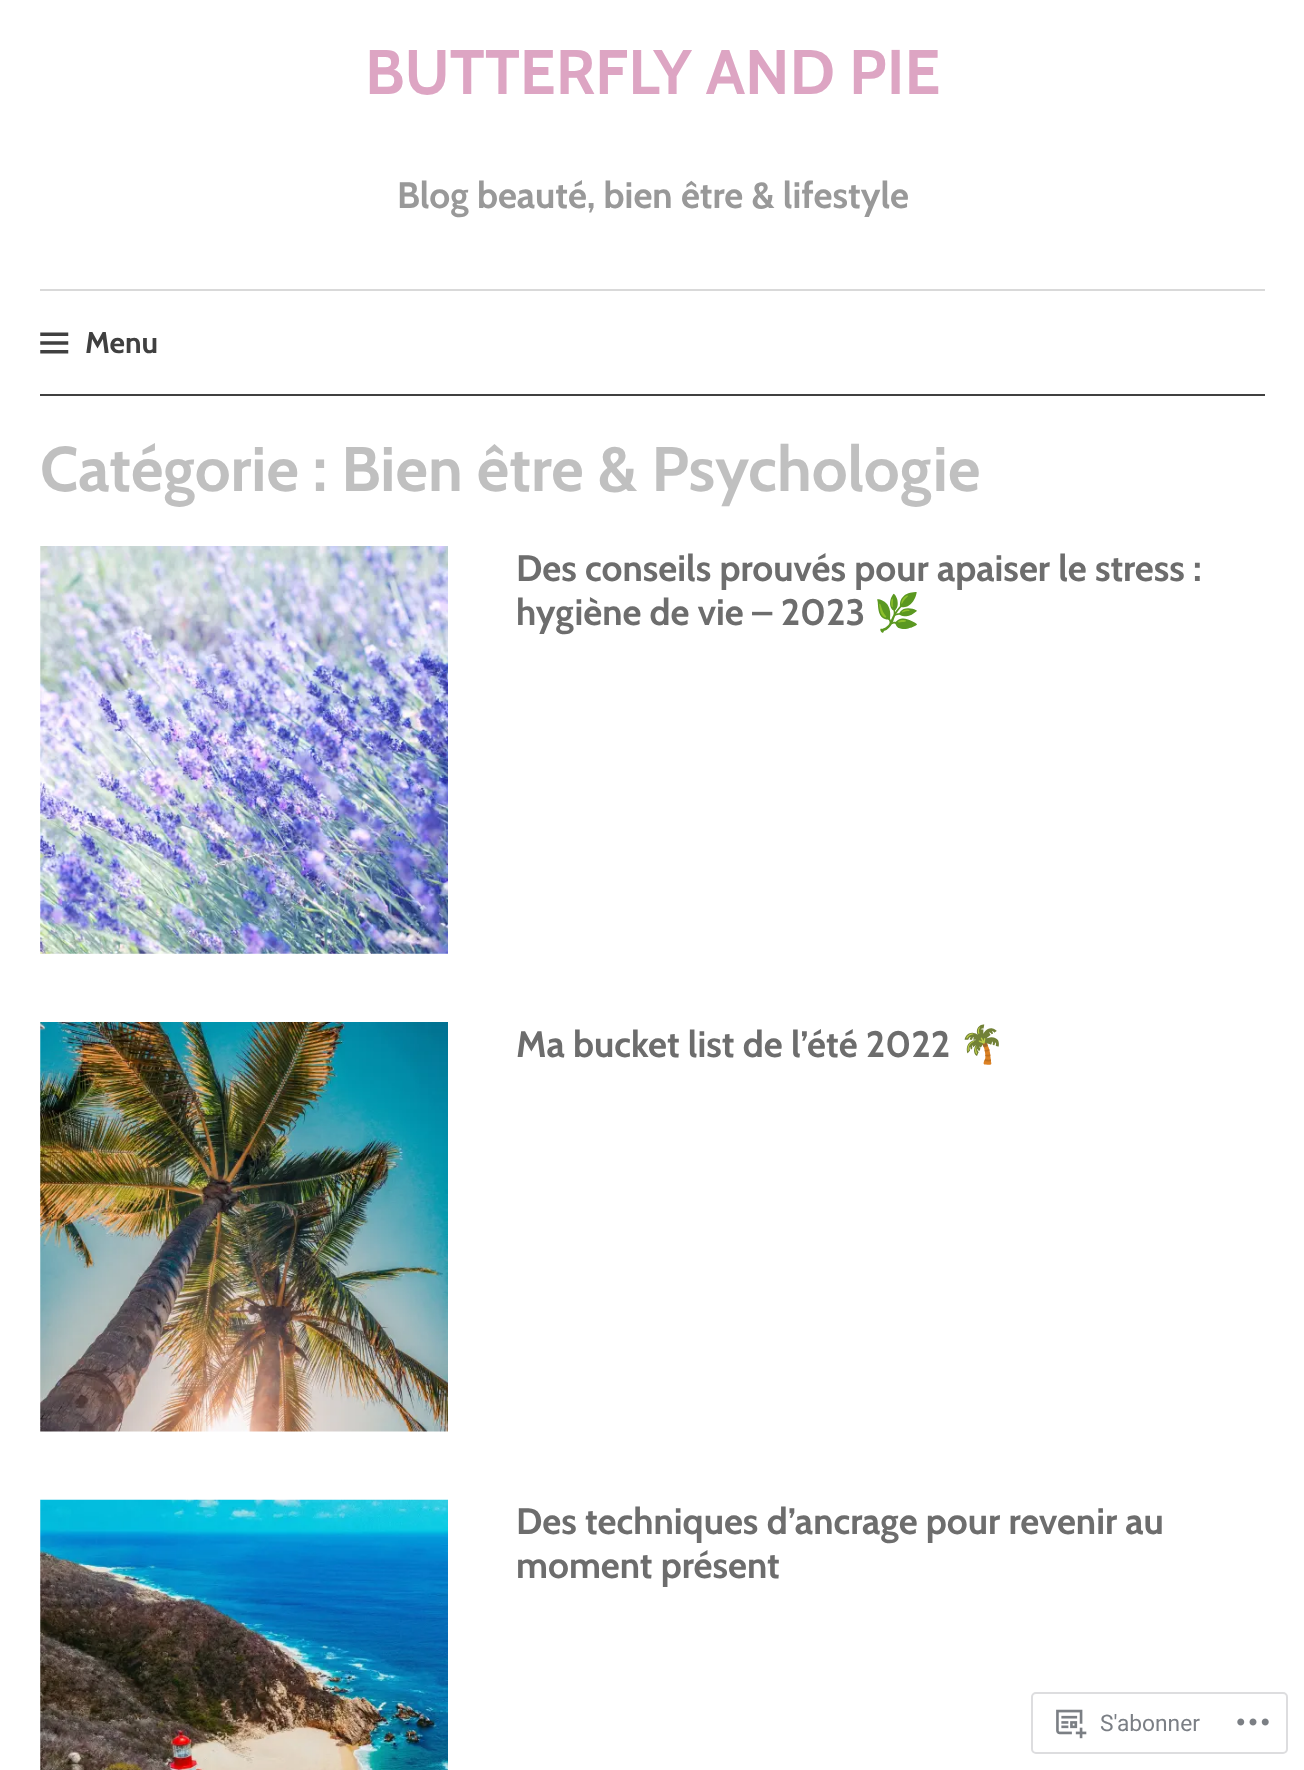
<!DOCTYPE html>
<meta charset="utf-8">
<style>body { margin: 0 } canvas { display: block }</style>
<canvas id="canvas" width="1304" height="1770"></canvas>
<img id="img1" src="images/1.png" hidden>
<img id="img2" src="images/2.png" hidden>
<img id="img3" src="images/3.png" hidden>
<img id="img4" src="images/4.png" hidden>
<img id="img5" src="images/5.png" hidden>
<img id="img6" src="images/6.png" hidden>
<script>
window.onload = function () {
    const canvas = document.getElementById('canvas');
    const context = canvas.getContext('2d');
    context.miterLimit = 4;
    context.fontKerning = 'normal';

    context.fillStyle = 'rgb(255, 255, 255)';
    context.fillRect(0, 0, 1304, 1770);
    context.fillStyle = 'rgb(217, 217, 217)';
    context.fillRect(40, 289, 1225, 2);
    context.fillStyle = 'rgb(64, 64, 64)';
    context.fillRect(40, 394, 1225, 2);
    context.drawImage(document.getElementById('img1'), 40, 332, 29, 22);
    context.drawImage(document.getElementById('img2'), 40, 546, 408, 408);
    context.drawImage(document.getElementById('img3'), 40, 1022, 408, 410);
    context.drawImage(document.getElementById('img4'), 40, 1499, 408, 271);
    context.beginPath();
    context.roundRect(1032, 1693, 255, 60, 4);
    context.strokeStyle = 'rgb(221, 221, 223)';
    context.lineWidth = 2;
    context.stroke();
    context.drawImage(document.getElementById('img5'), 1056, 1709, 31, 30);
    context.drawImage(document.getElementById('img6'), 1237, 1718, 32, 8);
    context.font = 'bold 63px Cabin';
    context.fillStyle = 'rgb(221, 165, 195)';
    context.fillText('BUTTERFLY AND PIE', 365, 94);
    context.font = 'bold 36.75px Cabin';
    context.fillStyle = 'rgb(153, 153, 153)';
    context.fillText('Blog beauté, bien être & lifestyle', 397, 208);
    context.font = 'bold 30px Cabin';
    context.fillStyle = 'rgb(64, 64, 64)';
    context.fillText('Menu', 85, 353);
    context.font = 'bold 63px Cabin';
    context.fillStyle = 'rgb(192, 192, 192)';
    context.fillText('Catégorie : Bien être & Psychologie', 40, 491);
    context.font = 'bold 36.75px Cabin';
    context.fillStyle = 'rgb(109, 109, 109)';
    context.fillText('Des conseils prouvés pour apaiser le stress :', 516, 581);
    context.fillText('hygiène de vie – 2023', 516, 625);
    context.font = 'bold 36.75px Noto Color Emoji';
    context.fillText('🌿', 874, 625);
    context.font = 'bold 36.75px Cabin';
    context.fillText('Ma bucket list de l’été 2022', 516, 1057);
    context.font = 'bold 36.75px Noto Color Emoji';
    context.fillText('🌴', 959, 1057);
    context.font = 'bold 36.75px Cabin';
    context.fillText('Des techniques d’ancrage pour revenir au', 516, 1534);
    context.fillText('moment présent', 516, 1578);
    context.font = '22.75px Roboto';
    context.fillStyle = 'rgb(123, 127, 133)';
    context.fillText('S\'abonner', 1100, 1731);
};
</script>
